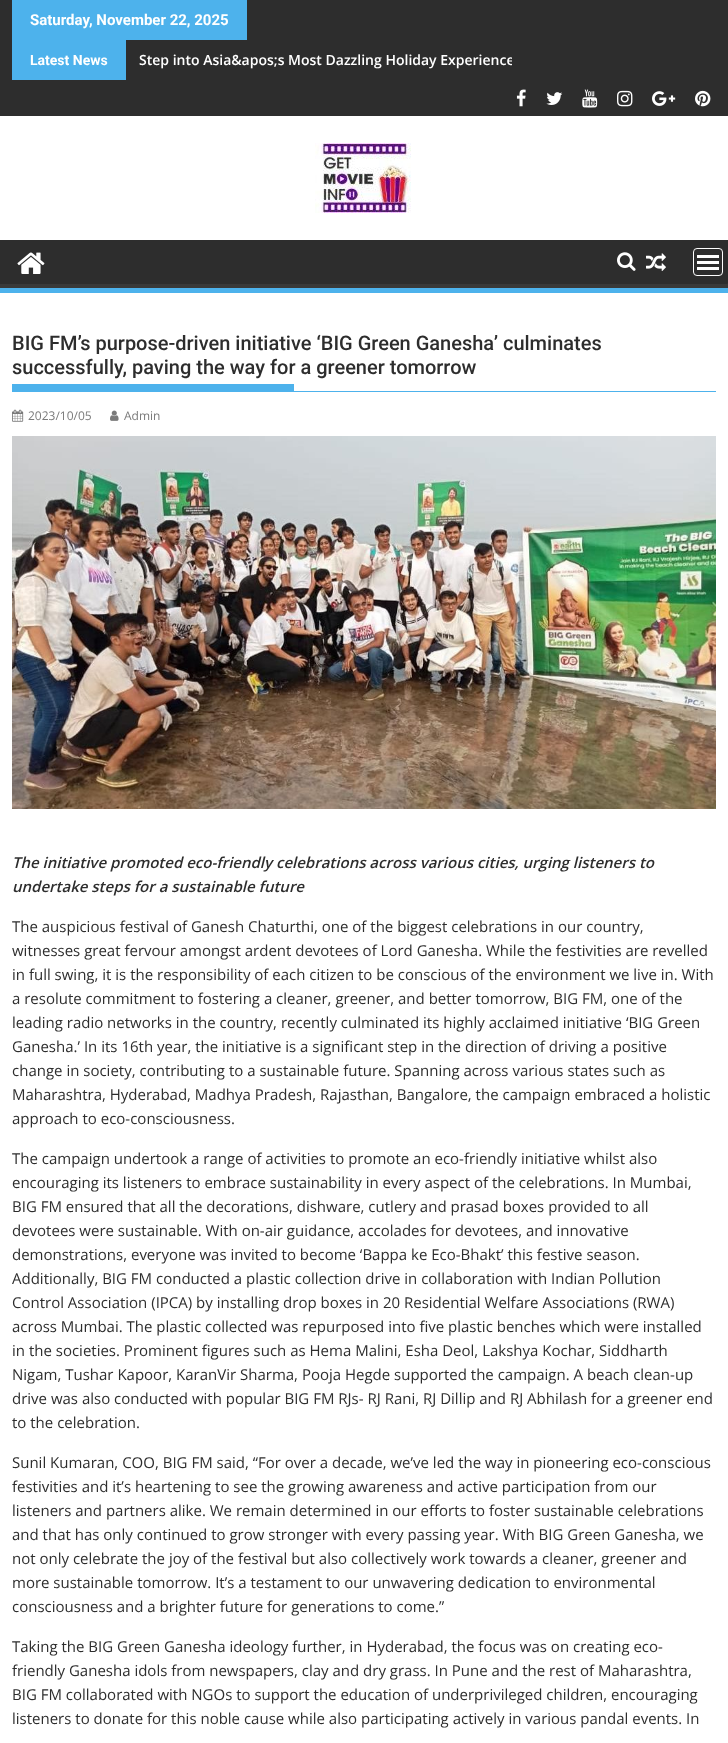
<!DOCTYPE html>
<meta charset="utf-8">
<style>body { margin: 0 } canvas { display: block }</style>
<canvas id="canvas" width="728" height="1743"></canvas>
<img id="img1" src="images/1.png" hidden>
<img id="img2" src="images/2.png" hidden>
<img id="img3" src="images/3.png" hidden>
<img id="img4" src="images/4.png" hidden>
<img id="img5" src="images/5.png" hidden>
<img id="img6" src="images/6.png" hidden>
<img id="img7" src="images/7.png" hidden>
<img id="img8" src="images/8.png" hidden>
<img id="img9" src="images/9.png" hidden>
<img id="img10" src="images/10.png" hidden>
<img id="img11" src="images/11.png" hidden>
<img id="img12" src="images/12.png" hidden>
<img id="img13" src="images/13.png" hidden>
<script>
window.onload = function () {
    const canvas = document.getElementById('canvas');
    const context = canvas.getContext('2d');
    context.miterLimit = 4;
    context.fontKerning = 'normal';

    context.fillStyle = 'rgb(255, 255, 255)';
    context.fillRect(0, 0, 728, 1743);
    context.fillStyle = 'rgb(45, 45, 45)';
    context.fillRect(0, 0, 728, 116);
    context.fillStyle = 'rgb(77, 178, 236)';
    context.fillRect(12, 0, 235, 40);
    context.fillRect(12, 40, 114, 40);
    context.drawImage(document.getElementById('img1'), 516, 89, 10, 18);
    context.drawImage(document.getElementById('img2'), 546, 92, 17, 13);
    context.drawImage(document.getElementById('img3'), 582, 89, 16, 19);
    context.drawImage(document.getElementById('img4'), 617, 90, 16, 17);
    context.drawImage(document.getElementById('img5'), 652, 91, 24, 15);
    context.drawImage(document.getElementById('img6'), 695, 90, 16, 17);
    context.drawImage(document.getElementById('img7'), 315, 143, 96, 70);
    context.fillStyle = 'rgb(45, 45, 45)';
    context.fillRect(0, 240, 728, 44);
    context.save();
    context.beginPath();
    context.rect(0, 240, 728, 48);
    context.clip();
    context.fillStyle = 'rgb(57, 57, 57)';
    context.beginPath();
    context.moveTo(-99, 141);
    context.lineTo(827, 141);
    context.lineTo(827, 387);
    context.lineTo(-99, 387);
    context.closePath();
    context.moveTo(-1, 234);
    context.lineTo(727, 234);
    context.lineTo(728, 235);
    context.lineTo(728, 283);
    context.lineTo(727, 284);
    context.lineTo(-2, 284);
    context.lineTo(-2, 243);
    context.bezierCurveTo(-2, 242, -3, 234, -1, 234);
    context.closePath();
    context.fill('evenodd');
    context.restore();
    context.fillStyle = 'rgb(77, 178, 236)';
    context.fillRect(0, 288, 728, 5);
    context.drawImage(document.getElementById('img8'), 17, 252, 28, 22);
    context.drawImage(document.getElementById('img9'), 617, 252, 19, 19);
    context.drawImage(document.getElementById('img10'), 646, 253, 20, 18);
    context.beginPath();
    context.roundRect(693.5, 248.5, 29, 27, 3.5);
    context.strokeStyle = 'rgb(255, 255, 255)';
    context.stroke();
    context.fillStyle = 'rgb(255, 255, 255)';
    context.fillRect(697, 267, 22, 3);
    context.fillRect(697, 261, 22, 3);
    context.fillRect(697, 255, 22, 3);
    context.fillStyle = 'rgb(77, 178, 236)';
    context.fillRect(12, 391, 704, 1);
    context.fillRect(12, 384, 282, 7);
    context.drawImage(document.getElementById('img11'), 12, 409, 12, 13);
    context.drawImage(document.getElementById('img12'), 110, 410, 9, 11);
    context.drawImage(document.getElementById('img13'), 12, 436, 704, 373);
    context.font = 'bold 15px Roboto';
    context.fillStyle = 'rgb(255, 255, 255)';
    context.fillText('Saturday, November 22, 2025', 30, 25);
    context.font = 'bold 14px Roboto';
    context.fillText('Latest News', 30, 65);
    context.save();
    context.beginPath();
    context.rect(126, 40, 386, 40);
    context.clip();
    context.font = '600 14px Open Sans';
    context.fillText('Step into Asia&apos;s Most Dazzling Holiday Experience', 139, 65);
    context.restore();
    context.font = '500 20px Roboto';
    context.fillStyle = 'rgb(45, 45, 45)';
    context.fillText('BIG FM’s purpose-driven initiative ‘BIG Green Ganesha’ culminates', 12, 350);
    context.fillText('successfully, paving the way for a greener tomorrow', 12, 374);
    context.font = '12px Open Sans';
    context.fillStyle = 'rgb(122, 122, 122)';
    context.fillText('2023/10/05', 28, 420);
    context.fillText('Admin', 124, 420);
    context.font = 'italic 600 15px Open Sans';
    context.fillStyle = 'rgb(45, 45, 45)';
    context.fillText('The initiative promoted eco-friendly celebrations across various cities, urging listeners to', 12, 868);
    context.fillText('undertake steps for a sustainable future', 12, 892);
    context.font = '15px Open Sans';
    context.fillText('The auspicious festival of Ganesh Chaturthi, one of the biggest celebrations in our country,', 12, 932);
    context.fillText('witnesses great fervour amongst ardent devotees of Lord Ganesha. While the festivities are revelled', 12, 956);
    context.fillText('in full swing, it is the responsibility of each citizen to be conscious of the environment we live in. With', 12, 980);
    context.fillText('a resolute commitment to fostering a cleaner, greener, and better tomorrow, BIG FM, one of the', 12, 1004);
    context.fillText('leading radio networks in the country, recently culminated its highly acclaimed initiative ‘BIG Green', 12, 1028);
    context.fillText('Ganesha.’ In its 16th year, the initiative is a significant step in the direction of driving a positive', 12, 1052);
    context.fillText('change in society, contributing to a sustainable future. Spanning across various states such as', 12, 1076);
    context.fillText('Maharashtra, Hyderabad, Madhya Pradesh, Rajasthan, Bangalore, the campaign embraced a holistic', 12, 1100);
    context.fillText('approach to eco-consciousness.', 12, 1124);
    context.fillText('The campaign undertook a range of activities to promote an eco-friendly initiative whilst also', 12, 1164);
    context.fillText('encouraging its listeners to embrace sustainability in every aspect of the celebrations. In Mumbai,', 12, 1188);
    context.fillText('BIG FM ensured that all the decorations, dishware, cutlery and prasad boxes provided to all', 12, 1212);
    context.fillText('devotees were sustainable. With on-air guidance, accolades for devotees, and innovative', 12, 1236);
    context.fillText('demonstrations, everyone was invited to become ‘Bappa ke Eco-Bhakt’ this festive season.', 12, 1260);
    context.fillText('Additionally, BIG FM conducted a plastic collection drive in collaboration with Indian Pollution', 12, 1284);
    context.fillText('Control Association (IPCA) by installing drop boxes in 20 Residential Welfare Associations (RWA)', 12, 1308);
    context.fillText('across Mumbai. The plastic collected was repurposed into five plastic benches which were installed', 12, 1332);
    context.fillText('in the societies. Prominent figures such as Hema Malini, Esha Deol, Lakshya Kochar, Siddharth', 12, 1356);
    context.fillText('Nigam, Tushar Kapoor, KaranVir Sharma, Pooja Hegde supported the campaign. A beach clean-up', 12, 1380);
    context.fillText('drive was also conducted with popular BIG FM RJs- RJ Rani, RJ Dillip and RJ Abhilash for a greener end', 12, 1404);
    context.fillText('to the celebration.', 12, 1428);
    context.fillText('Sunil Kumaran, COO, BIG FM said, “For over a decade, we’ve led the way in pioneering eco-conscious', 12, 1468);
    context.fillText('festivities and it’s heartening to see the growing awareness and active participation from our', 12, 1492);
    context.fillText('listeners and partners alike. We remain determined in our efforts to foster sustainable celebrations', 12, 1516);
    context.fillText('and that has only continued to grow stronger with every passing year. With BIG Green Ganesha, we', 12, 1540);
    context.fillText('not only celebrate the joy of the festival but also collectively work towards a cleaner, greener and', 12, 1564);
    context.fillText('more sustainable tomorrow. It’s a testament to our unwavering dedication to environmental', 12, 1588);
    context.fillText('consciousness and a brighter future for generations to come.”', 12, 1612);
    context.fillText('Taking the BIG Green Ganesha ideology further, in Hyderabad, the focus was on creating eco-', 12, 1652);
    context.fillText('friendly Ganesha idols from newspapers, clay and dry grass. In Pune and the rest of Maharashtra,', 12, 1676);
    context.fillText('BIG FM collaborated with NGOs to support the education of underprivileged children, encouraging', 12, 1700);
    context.fillText('listeners to donate for this noble cause while also participating actively in various pandal events. In', 12, 1724);
};
</script>
